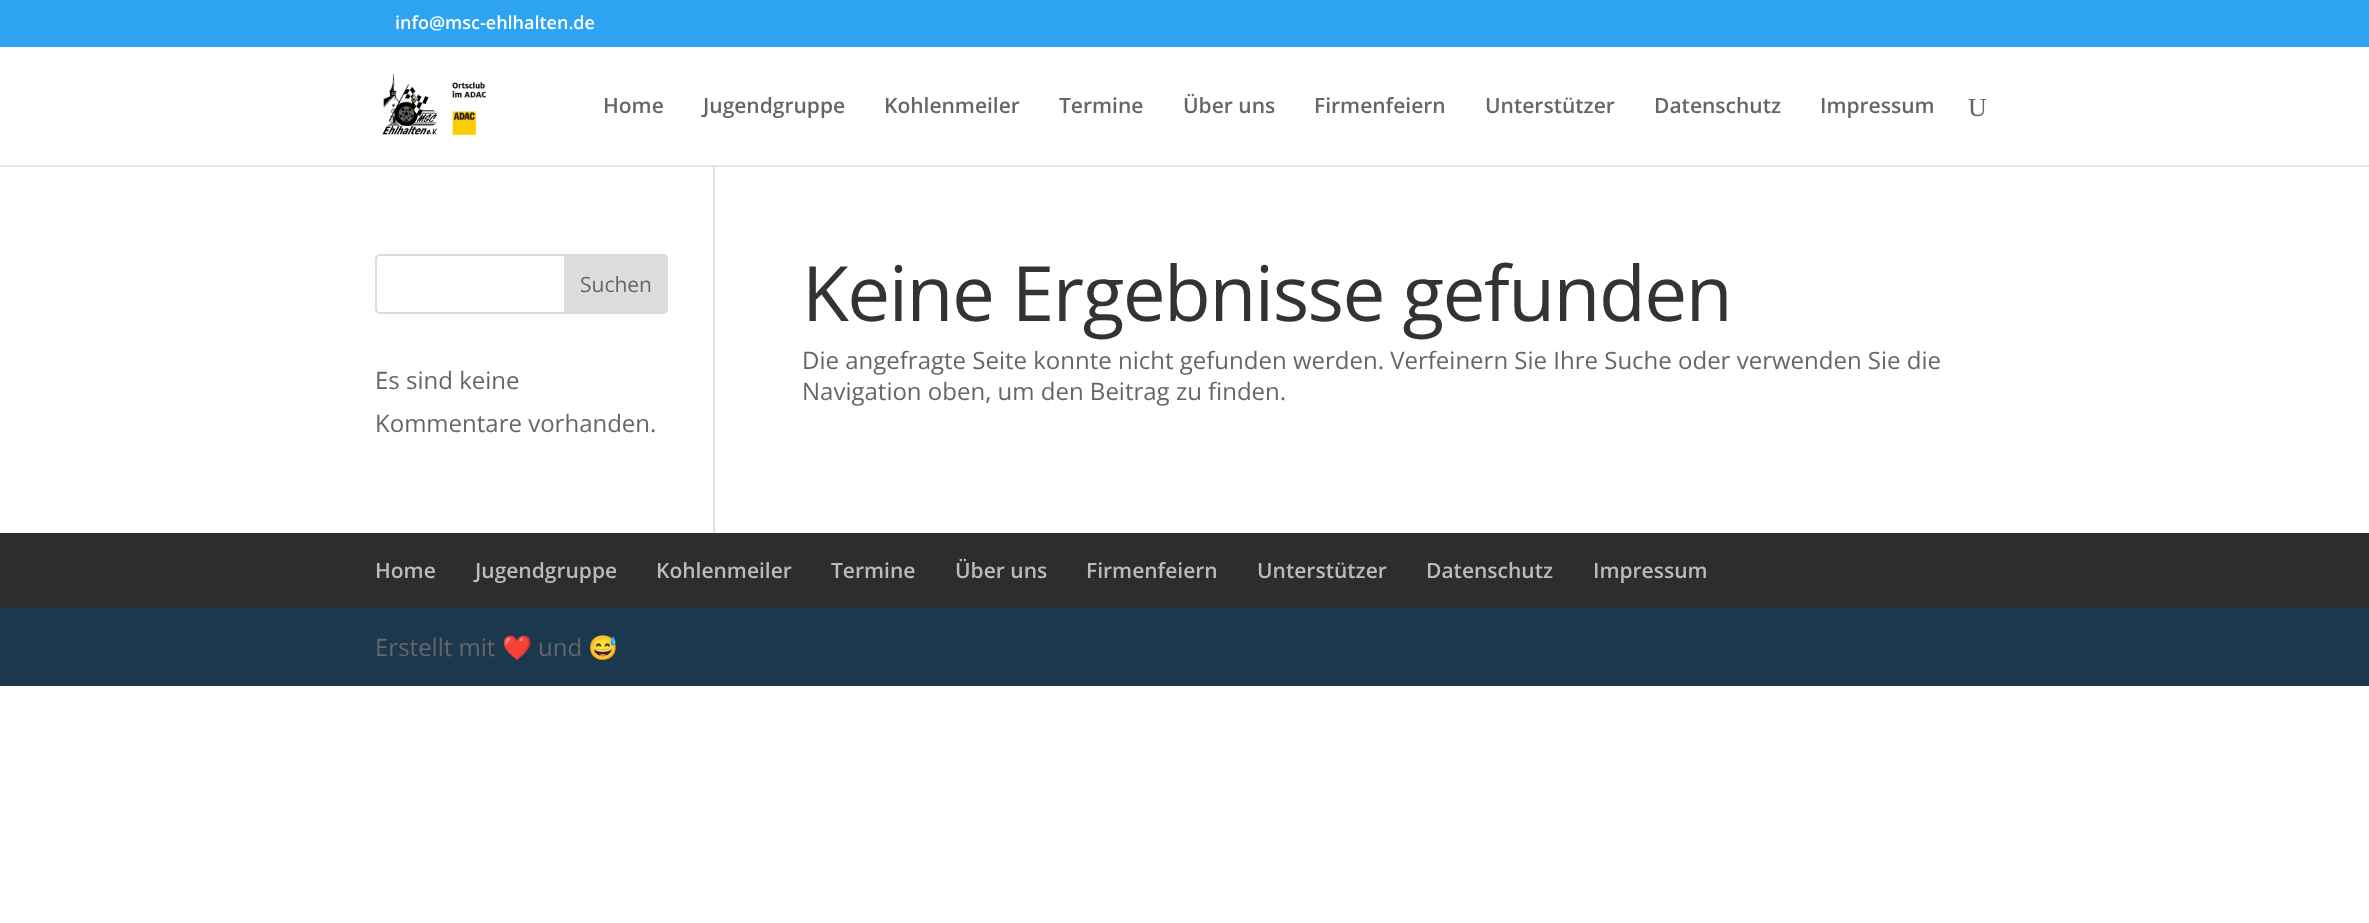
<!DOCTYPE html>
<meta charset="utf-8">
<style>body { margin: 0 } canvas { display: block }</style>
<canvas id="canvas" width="2369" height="923"></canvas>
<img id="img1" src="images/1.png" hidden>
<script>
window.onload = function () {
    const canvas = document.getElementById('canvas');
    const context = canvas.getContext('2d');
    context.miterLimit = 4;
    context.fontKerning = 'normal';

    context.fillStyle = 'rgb(255, 255, 255)';
    context.fillRect(0, 0, 2369, 923);
    context.fillStyle = 'rgb(46, 163, 242)';
    context.fillRect(0, 0, 2369, 47);
    context.fillStyle = 'rgb(230, 230, 230)';
    context.fillRect(0, 165, 2369, 2);
    context.drawImage(document.getElementById('img1'), 382, 73, 104, 63);
    context.fillStyle = 'rgb(226, 226, 226)';
    context.fillRect(713, 167, 2, 366);
    context.beginPath();
    context.roundRect(376, 255, 291, 58, 4);
    context.strokeStyle = 'rgb(221, 221, 221)';
    context.lineWidth = 2;
    context.stroke();
    context.fillStyle = 'rgb(221, 221, 221)';
    context.beginPath();
    context.roundRect(565, 255, 102, 58, [0, 4, 4, 0]);
    context.fill();
    context.stroke();
    context.fillStyle = 'rgb(45, 45, 45)';
    context.fillRect(0, 533, 2369, 76);
    context.fillStyle = 'rgb(28, 56, 79)';
    context.fillRect(0, 609, 2369, 77);
    context.font = '600 18px Open Sans';
    context.fillStyle = 'rgb(255, 255, 255)';
    context.fillText('info@msc-ehlhalten.de', 395, 29);
    context.font = '600 21px Open Sans';
    context.fillStyle = 'rgb(102, 102, 102)';
    context.fillText('Home', 603, 113);
    context.fillText('Jugendgruppe', 703, 113);
    context.fillText('Kohlenmeiler', 884, 113);
    context.fillText('Termine', 1059, 113);
    context.fillText('Über uns', 1183, 113);
    context.fillText('Firmenfeiern', 1314, 113);
    context.fillText('Unterstützer', 1485, 113);
    context.fillText('Datenschutz', 1654, 113);
    context.fillText('Impressum', 1820, 113);
    context.font = '26px Liberation Serif';
    context.fillText('U', 1968, 116);
    context.font = '21px Open Sans';
    context.fillText('Suchen', 580, 292);
    context.font = '24px Open Sans';
    context.fillText('Es sind keine', 375, 389);
    context.fillText('Kommentare vorhanden.', 375, 432);
    context.letterSpacing = '-1.5px';
    context.font = '76.5px Open Sans';
    context.fillStyle = 'rgb(51, 51, 51)';
    context.fillText('Keine Ergebnisse gefunden', 802, 321);
    context.letterSpacing = '0px';
    context.font = '24px Open Sans';
    context.fillStyle = 'rgb(102, 102, 102)';
    context.fillText('Die angefragte Seite konnte nicht gefunden werden. Verfeinern Sie Ihre Suche oder verwenden Sie die', 802, 369);
    context.fillText('Navigation oben, um den Beitrag zu finden.', 802, 400);
    context.font = '600 21px Open Sans';
    context.fillStyle = 'rgb(187, 187, 187)';
    context.fillText('Home', 375, 578);
    context.fillText('Jugendgruppe', 475, 578);
    context.fillText('Kohlenmeiler', 656, 578);
    context.fillText('Termine', 831, 578);
    context.fillText('Über uns', 955, 578);
    context.fillText('Firmenfeiern', 1086, 578);
    context.fillText('Unterstützer', 1257, 578);
    context.fillText('Datenschutz', 1426, 578);
    context.fillText('Impressum', 1593, 578);
    context.font = '24px Open Sans';
    context.fillStyle = 'rgb(102, 102, 102)';
    context.fillText('Erstellt mit', 375, 656);
    context.font = '24px Noto Color Emoji';
    context.fillText('❤️', 502, 656);
    context.font = '24px Open Sans';
    context.fillText('und', 538, 656);
    context.font = '24px Noto Color Emoji';
    context.fillText('😅', 588, 656);
};
</script>
